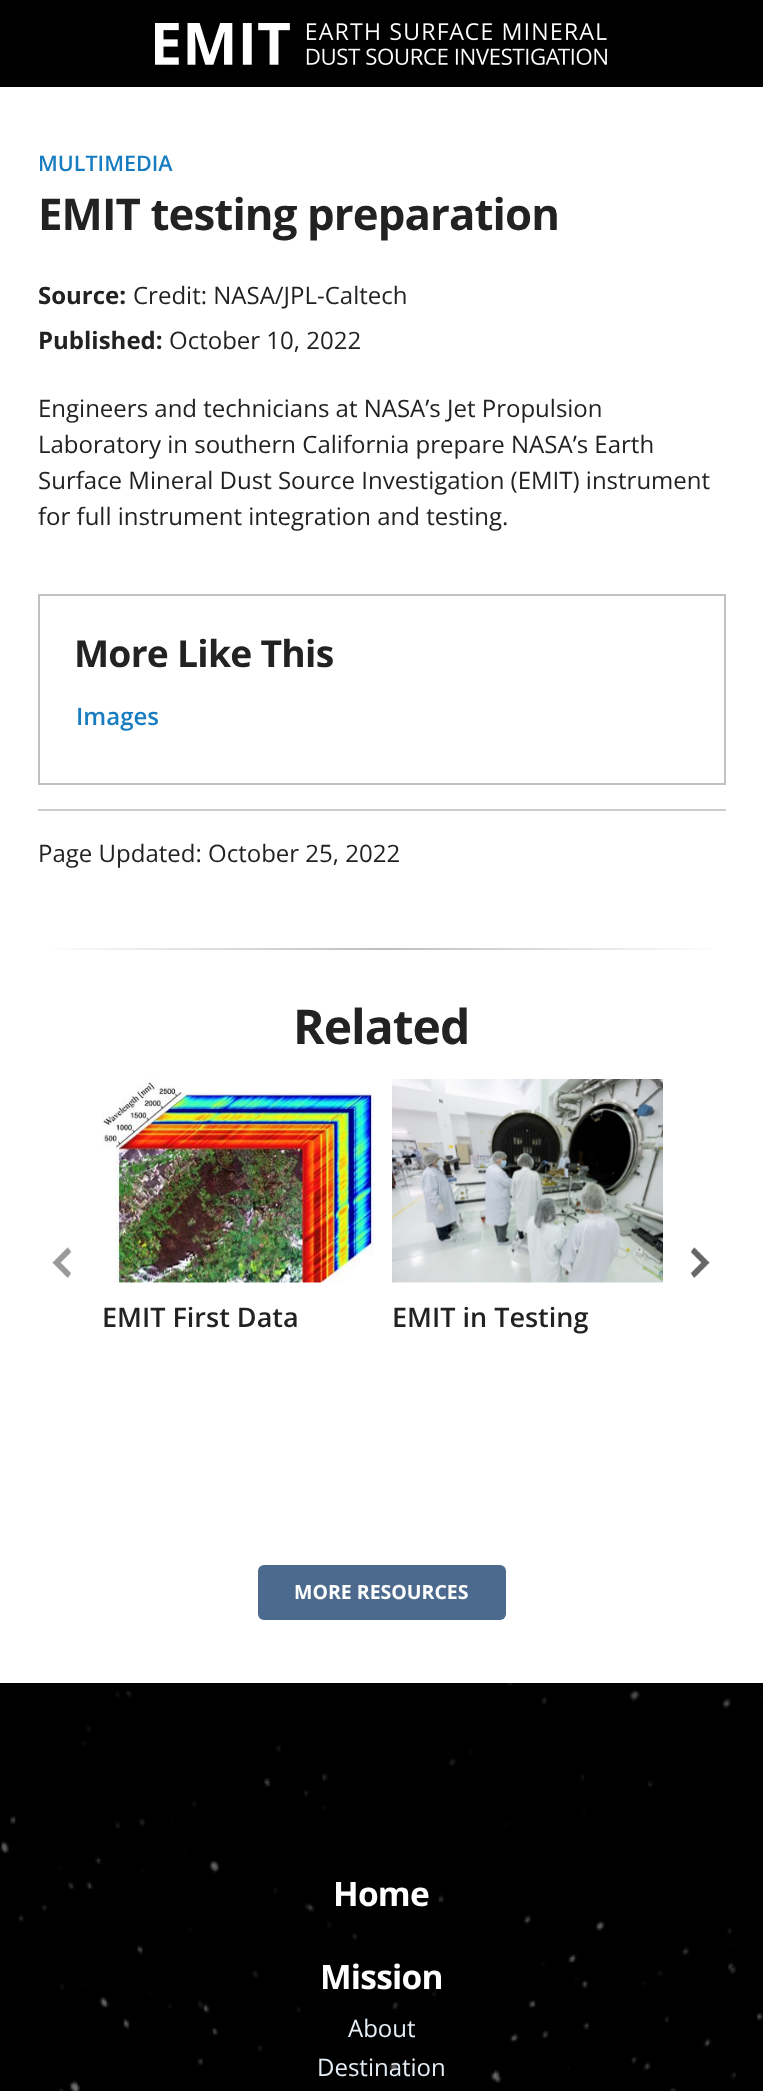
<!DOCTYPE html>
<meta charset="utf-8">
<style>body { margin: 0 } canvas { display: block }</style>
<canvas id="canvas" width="763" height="2091"></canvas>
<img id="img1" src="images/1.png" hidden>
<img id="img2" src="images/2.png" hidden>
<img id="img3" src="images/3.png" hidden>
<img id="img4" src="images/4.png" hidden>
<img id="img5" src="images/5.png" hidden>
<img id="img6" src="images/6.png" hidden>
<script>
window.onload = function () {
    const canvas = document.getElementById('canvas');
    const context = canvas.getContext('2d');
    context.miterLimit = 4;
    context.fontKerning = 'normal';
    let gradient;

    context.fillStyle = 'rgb(255, 255, 255)';
    context.fillRect(0, 0, 763, 2091);
    context.fillStyle = 'rgb(0, 0, 0)';
    context.fillRect(0, 0, 763, 87);
    context.drawImage(document.getElementById('img1'), 155, 23, 452, 42);
    context.strokeStyle = 'rgb(193, 193, 193)';
    context.lineWidth = 2;
    context.strokeRect(39, 595, 686, 189);
    context.fillStyle = 'rgb(204, 204, 204)';
    context.fillRect(38, 809, 688, 2);
    gradient = context.createLinearGradient(38, 949, 726, 949);
    gradient.addColorStop(0, 'rgb(255, 255, 255)');
    gradient.addColorStop(0.5, 'rgb(190, 190, 190)');
    gradient.addColorStop(1, 'rgb(255, 255, 255)');
    context.fillStyle = gradient;
    context.fillRect(51, 948, 662, 2);
    context.drawImage(document.getElementById('img2'), 52, 1247, 20, 31);
    context.drawImage(document.getElementById('img3'), 690, 1247, 20, 31);
    context.drawImage(document.getElementById('img4'), 102, 1079, 272, 204);
    context.drawImage(document.getElementById('img5'), 392, 1079, 271, 204);
    context.fillStyle = 'rgb(75, 106, 141)';
    context.beginPath();
    context.roundRect(258, 1565, 248, 55, 6);
    context.fill();
    context.fillStyle = 'rgb(0, 0, 0)';
    context.fillRect(0, 1683, 763, 408);
    context.drawImage(document.getElementById('img6'), 0, 1683, 763, 408);
    context.font = '600 21.5px Open Sans';
    context.fillStyle = 'rgb(23, 124, 192)';
    context.fillText('MULTIMEDIA', 38, 171);
    context.letterSpacing = '-0.9px';
    context.font = 'bold 43.75px Open Sans';
    context.fillStyle = 'rgb(34, 34, 34)';
    context.fillText('EMIT testing preparation', 38, 230);
    context.letterSpacing = '0px';
    context.font = 'bold 24px Open Sans';
    context.fillText('Source:', 38, 304);
    context.font = '24px Open Sans';
    context.fillText('Credit: NASA/JPL-Caltech', 133, 304);
    context.font = 'bold 24px Open Sans';
    context.fillText('Published:', 38, 349);
    context.font = '24px Open Sans';
    context.fillText('October 10, 2022', 169, 349);
    context.fillText('Engineers and technicians at NASA’s Jet Propulsion', 38, 417);
    context.fillText('Laboratory in southern California prepare NASA’s Earth', 38, 453);
    context.fillText('Surface Mineral Dust Source Investigation (EMIT) instrument', 38, 489);
    context.fillText('for full instrument integration and testing.', 38, 525);
    context.letterSpacing = '-0.75px';
    context.font = 'bold 37.25px Open Sans';
    context.fillText('More Like This', 74, 667);
    context.letterSpacing = '0px';
    context.font = '600 24px Open Sans';
    context.fillStyle = 'rgb(23, 124, 192)';
    context.fillText('Images', 76, 725);
    context.font = '24px Open Sans';
    context.fillStyle = 'rgb(34, 34, 34)';
    context.fillText('Page Updated: October 25, 2022', 38, 862);
    context.letterSpacing = '-1px';
    context.font = 'bold 48px Open Sans';
    context.fillText('Related', 293, 1044);
    context.letterSpacing = '0px';
    context.font = '600 27px Open Sans';
    context.fillText('EMIT First Data', 102, 1327);
    context.fillText('EMIT in Testing', 392, 1327);
    context.font = 'bold 19.5px Open Sans';
    context.fillStyle = 'rgb(255, 255, 255)';
    context.fillText('MORE RESOURCES', 294, 1599);
    context.letterSpacing = '-0.75px';
    context.font = 'bold 33.5px Open Sans';
    context.fillText('Home', 333, 1906);
    context.fillText('Mission', 320, 1989);
    context.letterSpacing = '0px';
    context.font = '24px Open Sans';
    context.fillStyle = 'rgb(229, 238, 246)';
    context.fillText('About', 348, 2037);
    context.fillText('Destination', 317, 2076);
};
</script>
